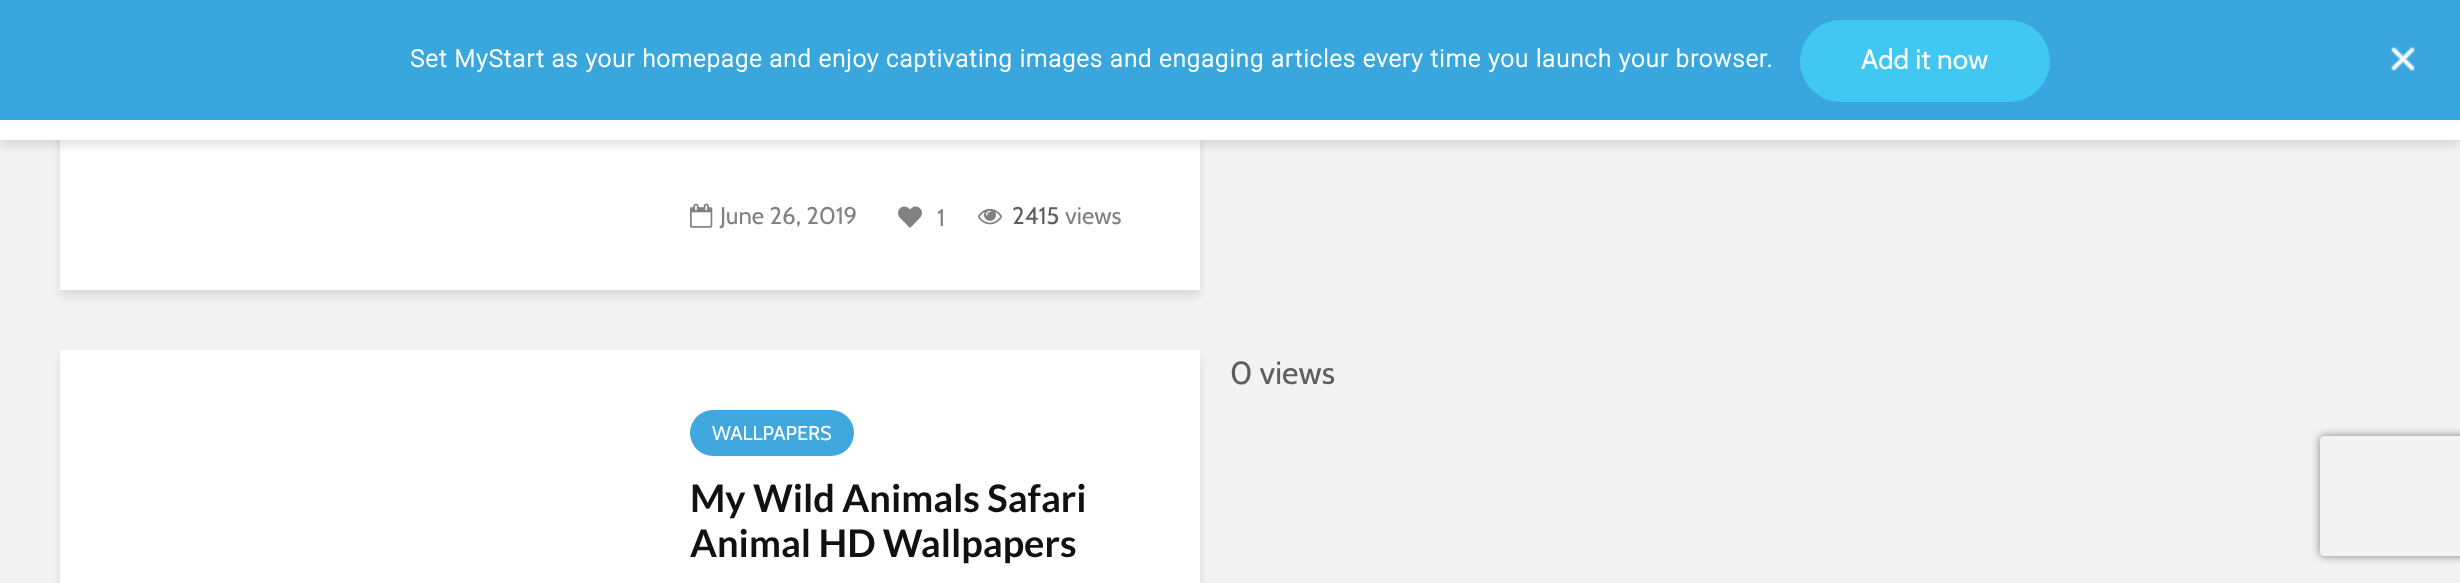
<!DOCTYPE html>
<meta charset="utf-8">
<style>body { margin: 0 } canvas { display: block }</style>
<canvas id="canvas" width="2460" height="583"></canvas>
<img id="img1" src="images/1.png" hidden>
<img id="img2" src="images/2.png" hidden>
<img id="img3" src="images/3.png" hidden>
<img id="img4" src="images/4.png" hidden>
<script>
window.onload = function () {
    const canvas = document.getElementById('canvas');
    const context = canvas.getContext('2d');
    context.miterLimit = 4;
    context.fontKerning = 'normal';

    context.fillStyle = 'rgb(243, 243, 243)';
    context.fillRect(0, 0, 2460, 583);
    context.fillStyle = 'rgba(0, 1, 1, 0.1)';
    context.filter = 'blur(5px)';
    context.beginPath();
    context.rect(60, -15, 1140, 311);
    context.fill();
    context.filter = 'none';
    context.fillStyle = 'rgb(255, 255, 255)';
    context.fillRect(60, 140, 1140, 150);
    context.fillStyle = 'rgba(0, 1, 1, 0.1)';
    context.filter = 'blur(5px)';
    context.beginPath();
    context.rect(0, 6, 2460, 140);
    context.fill();
    context.filter = 'none';
    context.fillStyle = 'rgb(255, 255, 255)';
    context.fillRect(0, 120, 2460, 20);
    context.fillStyle = 'rgb(57, 167, 222)';
    context.fillRect(0, 0, 2460, 120);
    context.fillStyle = 'rgb(64, 199, 242)';
    context.beginPath();
    context.roundRect(1800, 20, 250, 82, 41);
    context.fill();
    context.drawImage(document.getElementById('img1'), 2391, 47, 24, 24);
    context.drawImage(document.getElementById('img2'), 690, 203, 23, 25);
    context.drawImage(document.getElementById('img3'), 898, 206, 24, 22);
    context.drawImage(document.getElementById('img4'), 978, 208, 24, 17);
    context.fillStyle = 'rgba(0, 1, 1, 0.1)';
    context.filter = 'blur(5px)';
    context.beginPath();
    context.rect(60, 356, 1140, 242);
    context.fill();
    context.filter = 'none';
    context.fillStyle = 'rgb(255, 255, 255)';
    context.fillRect(60, 350, 1140, 233);
    context.fillStyle = 'rgb(64, 168, 222)';
    context.beginPath();
    context.roundRect(690, 410, 164, 46, 23);
    context.fill();
    context.save();
    context.beginPath();
    context.moveTo(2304, 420);
    context.lineTo(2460, 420);
    context.lineTo(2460, 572);
    context.lineTo(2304, 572);
    context.closePath();
    context.moveTo(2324, 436);
    context.lineTo(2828, 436);
    context.bezierCurveTo(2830, 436, 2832, 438, 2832, 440);
    context.lineTo(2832, 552);
    context.bezierCurveTo(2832, 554, 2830, 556, 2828, 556);
    context.lineTo(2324, 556);
    context.bezierCurveTo(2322, 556, 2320, 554, 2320, 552);
    context.lineTo(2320, 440);
    context.bezierCurveTo(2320, 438, 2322, 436, 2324, 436);
    context.closePath();
    context.clip('evenodd');
    context.fillStyle = 'rgb(128, 128, 128)';
    context.filter = 'blur(5px)';
    context.beginPath();
    context.roundRect(2320, 436, 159, 120, 4);
    context.fill();
    context.filter = 'none';
    context.restore();
    context.letterSpacing = '1px';
    context.font = 'bold 24px Roboto';
    context.fillStyle = 'rgb(255, 255, 255)';
    context.fillText('Set MyStart as your homepage and enjoy captivating images and engaging articles every time you launch your browser.', 410, 67);
    context.letterSpacing = '0px';
    context.font = '28px Cabin';
    context.fillText('Add it now', 1861, 69);
    context.font = '24px Cabin';
    context.fillStyle = 'rgb(129, 129, 129)';
    context.fillText('June 26, 2019', 720, 224);
    context.fillText('1', 937, 226);
    context.fillStyle = 'rgb(94, 94, 94)';
    context.fillText('2415', 1012, 224);
    context.fillStyle = 'rgb(129, 129, 129)';
    context.fillText('views', 1065, 224);
    context.font = '32px Cabin';
    context.fillStyle = 'rgb(94, 94, 94)';
    context.fillText('0 views', 1230, 384);
    context.font = '20px Cabin';
    context.fillStyle = 'rgb(255, 255, 255)';
    context.fillText('WALLPAPERS', 712, 440);
    context.font = 'bold 38px Lato';
    context.fillStyle = 'rgb(17, 17, 17)';
    context.fillText('My Wild Animals Safari', 690, 512);
    context.fillText('Animal HD Wallpapers', 690, 557);
};
</script>
